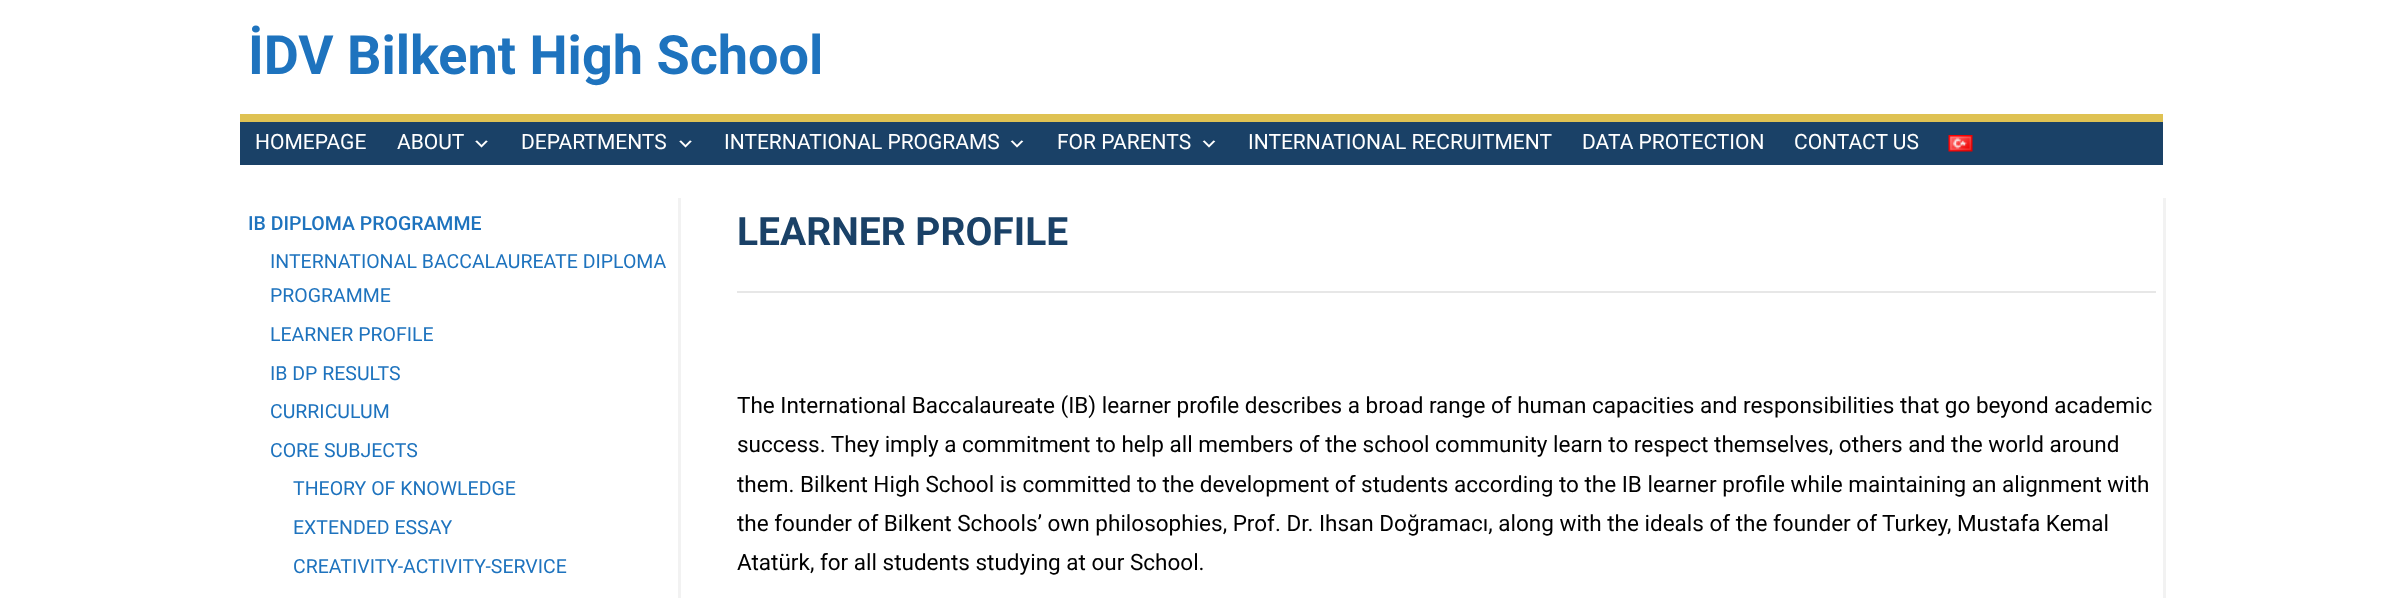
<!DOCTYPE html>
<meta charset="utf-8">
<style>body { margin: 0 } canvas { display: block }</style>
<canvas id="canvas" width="2402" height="598"></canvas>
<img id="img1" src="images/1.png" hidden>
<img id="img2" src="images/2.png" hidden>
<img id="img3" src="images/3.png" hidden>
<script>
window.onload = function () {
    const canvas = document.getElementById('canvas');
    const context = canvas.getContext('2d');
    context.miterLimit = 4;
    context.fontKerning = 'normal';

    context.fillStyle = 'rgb(255, 255, 255)';
    context.fillRect(0, 0, 2402, 598);
    context.fillStyle = 'rgb(26, 65, 103)';
    context.fillRect(240, 122, 1923, 43);
    context.fillStyle = 'rgb(223, 194, 83)';
    context.fillRect(240, 114, 1923, 8);
    context.drawImage(document.getElementById('img1'), 475, 140, 13, 8);
    context.drawImage(document.getElementById('img1'), 679, 140, 13, 8);
    context.drawImage(document.getElementById('img2'), 1010, 140, 14, 8);
    context.drawImage(document.getElementById('img2'), 1202, 140, 14, 8);
    context.drawImage(document.getElementById('img3'), 1948, 135, 25, 17);
    context.fillStyle = 'rgb(242, 242, 242)';
    context.beginPath();
    context.moveTo(243, 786);
    context.lineTo(243, 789);
    context.lineTo(681, 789);
    context.lineTo(681, 198);
    context.lineTo(678, 198);
    context.lineTo(678, 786);
    context.closePath();
    context.fill();
    context.beginPath();
    context.moveTo(732, 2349);
    context.lineTo(732, 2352);
    context.lineTo(2166, 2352);
    context.lineTo(2166, 198);
    context.lineTo(2163, 198);
    context.lineTo(2163, 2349);
    context.closePath();
    context.fill();
    context.fillStyle = 'rgb(231, 231, 231)';
    context.fillRect(737, 291, 1419, 2);
    context.font = 'bold 54px Roboto';
    context.fillStyle = 'rgb(30, 115, 190)';
    context.fillText('İDV Bilkent High School', 248, 74);
    context.font = '21px Roboto';
    context.fillStyle = 'rgb(255, 255, 255)';
    context.fillText('HOMEPAGE', 255, 149);
    context.fillText('ABOUT', 397, 149);
    context.fillText('DEPARTMENTS', 521, 149);
    context.fillText('INTERNATIONAL PROGRAMS', 724, 149);
    context.fillText('FOR PARENTS', 1057, 149);
    context.fillText('INTERNATIONAL RECRUITMENT', 1248, 149);
    context.fillText('DATA PROTECTION', 1582, 149);
    context.fillText('CONTACT US', 1794, 149);
    context.font = '500 19.5px Roboto';
    context.fillStyle = 'rgb(30, 115, 190)';
    context.fillText('IB DIPLOMA PROGRAMME', 248, 230);
    context.font = '19.5px Roboto';
    context.fillText('INTERNATIONAL BACCALAUREATE DIPLOMA', 270, 268);
    context.fillText('PROGRAMME', 270, 302);
    context.fillText('LEARNER PROFILE', 270, 341);
    context.fillText('IB DP RESULTS', 270, 380);
    context.fillText('CURRICULUM', 270, 418);
    context.fillText('CORE SUBJECTS', 270, 457);
    context.fillText('THEORY OF KNOWLEDGE', 293, 495);
    context.fillText('EXTENDED ESSAY', 293, 534);
    context.fillText('CREATIVITY-ACTIVITY-SERVICE', 293, 573);
    context.font = 'bold 39px Roboto';
    context.fillStyle = 'rgb(26, 65, 103)';
    context.fillText('LEARNER PROFILE', 737, 245);
    context.font = '22.5px Roboto';
    context.fillStyle = 'rgb(0, 0, 0)';
    context.fillText('The International Baccalaureate (IB) learner profile describes a broad range of human capacities and responsibilities that go beyond academic', 737, 413);
    context.fillText('success. They imply a commitment to help all members of the school community learn to respect themselves, others and the world around', 737, 452);
    context.fillText('them. Bilkent High School is committed to the development of students according to the IB learner profile while maintaining an alignment with', 737, 492);
    context.fillText('the founder of Bilkent Schools’ own philosophies, Prof. Dr. Ihsan Doğramacı, along with the ideals of the founder of Turkey, Mustafa Kemal', 737, 531);
    context.fillText('Atatürk, for all students studying at our School.', 737, 570);
};
</script>
